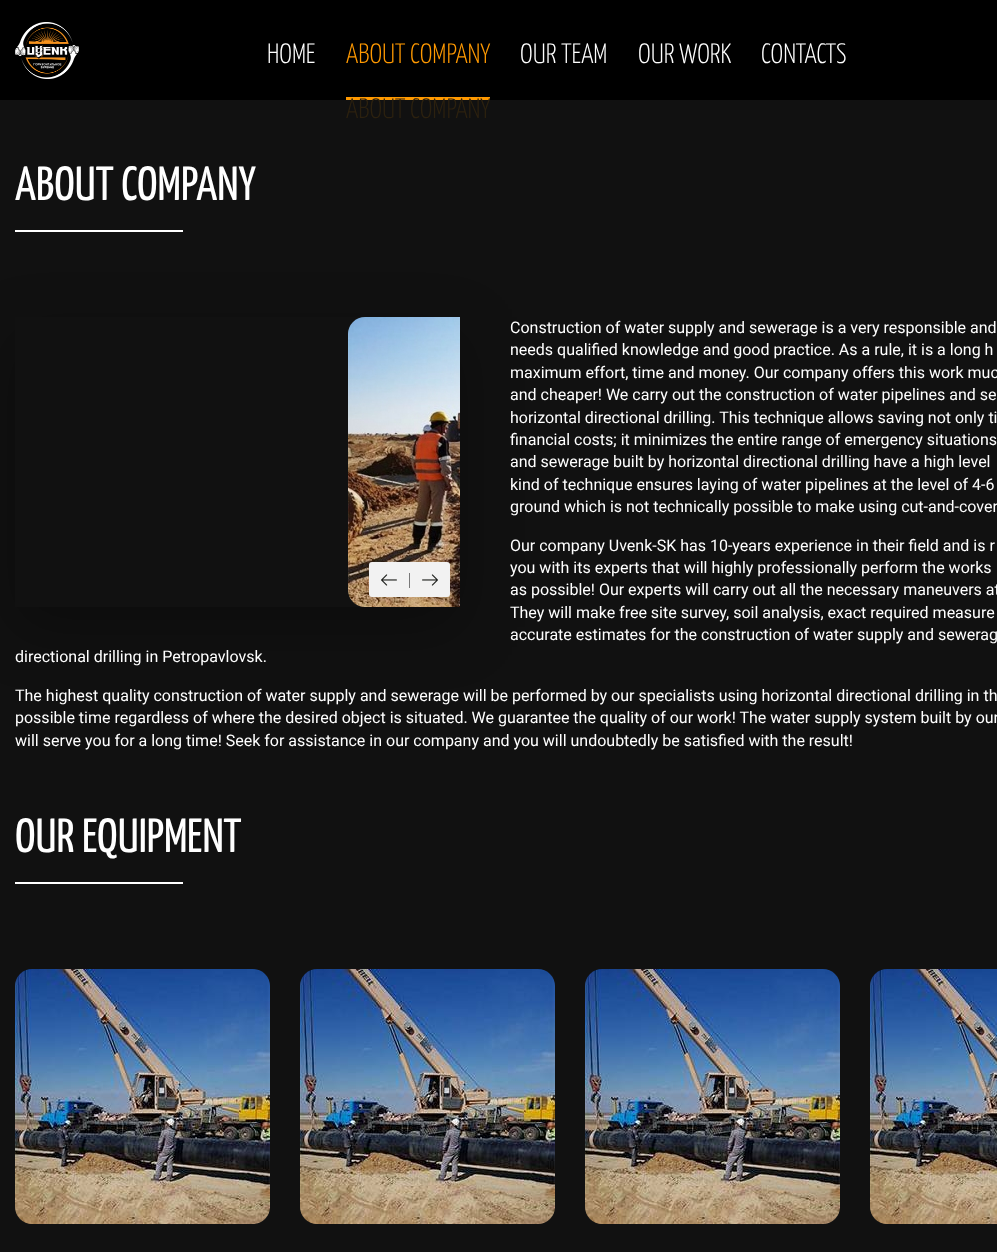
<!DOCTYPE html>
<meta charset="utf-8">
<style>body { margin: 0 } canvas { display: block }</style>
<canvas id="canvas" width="997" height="1252"></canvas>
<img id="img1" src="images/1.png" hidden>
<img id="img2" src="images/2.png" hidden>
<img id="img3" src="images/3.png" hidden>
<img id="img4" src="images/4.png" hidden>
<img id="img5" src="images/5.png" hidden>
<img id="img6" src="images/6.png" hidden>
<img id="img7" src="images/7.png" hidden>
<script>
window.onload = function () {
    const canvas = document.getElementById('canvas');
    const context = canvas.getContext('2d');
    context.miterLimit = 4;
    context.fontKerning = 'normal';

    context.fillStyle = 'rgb(0, 0, 0)';
    context.fillRect(0, 0, 997, 1252);
    context.drawImage(document.getElementById('img1'), 15, 22, 64, 57);
    context.fillStyle = 'rgb(255, 153, 0)';
    context.fillRect(346, 97, 144, 3);
    context.fillStyle = 'rgb(17, 17, 17)';
    context.fillRect(0, 100, 997, 1152);
    context.fillStyle = 'rgb(255, 255, 255)';
    context.fillRect(15, 230, 168, 2);
    context.save();
    context.beginPath();
    context.moveTo(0, 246);
    context.lineTo(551, 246);
    context.lineTo(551, 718);
    context.lineTo(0, 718);
    context.closePath();
    context.moveTo(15, 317);
    context.lineTo(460, 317);
    context.lineTo(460, 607);
    context.lineTo(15, 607);
    context.closePath();
    context.clip('evenodd');
    context.fillStyle = 'rgba(0, 0, 0, 0.3)';
    context.filter = 'blur(30px)';
    context.beginPath();
    context.rect(15, 337, 445, 290);
    context.fill();
    context.filter = 'none';
    context.restore();
    context.drawImage(document.getElementById('img2'), 348, 317, 112, 290);
    context.fillStyle = 'rgb(242, 242, 242)';
    context.beginPath();
    context.roundRect(369, 562, 81, 35, 3);
    context.fill();
    context.drawImage(document.getElementById('img3'), 381, 574, 16, 12);
    context.drawImage(document.getElementById('img4'), 422, 574, 16, 12);
    context.fillStyle = 'rgb(121, 121, 121)';
    context.fillRect(409, 573, 1, 15);
    context.fillStyle = 'rgb(255, 255, 255)';
    context.fillRect(15, 882, 168, 2);
    context.drawImage(document.getElementById('img5'), 15, 969, 255, 255);
    context.drawImage(document.getElementById('img6'), 300, 969, 255, 255);
    context.drawImage(document.getElementById('img6'), 585, 969, 255, 255);
    context.drawImage(document.getElementById('img7'), 870, 969, 127, 255);
    context.font = '300 28px Yanone Kaffeesatz';
    context.fillText('HOME', 267, 63);
    context.fillStyle = 'rgb(255, 153, 0)';
    context.fillText('ABOUT COMPANY', 346, 63);
    context.fillStyle = 'rgb(44, 33, 15)';
    context.fillText('ABOUT COMPANY', 346, 118);
    context.fillStyle = 'rgb(255, 255, 255)';
    context.fillText('OUR TEAM', 520, 63);
    context.fillText('OUR WORK', 638, 63);
    context.fillText('CONTACTS', 761, 63);
    context.font = '48px Yanone Kaffeesatz';
    context.fillText('ABOUT COMPANY', 15, 200);
    context.font = '16px Roboto';
    context.fillText('Construction of water supply and sewerage is a very responsible and', 510, 333);
    context.fillText('needs qualified knowledge and good practice. As a rule, it is a long h', 510, 355);
    context.fillText('maximum effort, time and money. Our company offers this work muc', 510, 378);
    context.fillText('and cheaper! We carry out the construction of water pipelines and se', 510, 400);
    context.fillText('horizontal directional drilling. This technique allows saving not only ti', 510, 423);
    context.fillText('financial costs; it minimizes the entire range of emergency situations', 510, 445);
    context.fillText('and sewerage built by horizontal directional drilling have a high level', 510, 467);
    context.fillText('kind of technique ensures laying of water pipelines at the level of 4-6', 510, 490);
    context.fillText('ground which is not technically possible to make using cut-and-cover', 510, 512);
    context.fillText('Our company Uvenk-SK has 10-years experience in their field and is r', 510, 551);
    context.fillText('you with its experts that will highly professionally perform the works', 510, 573);
    context.fillText('as possible! Our experts will carry out all the necessary maneuvers at', 510, 595);
    context.fillText('They will make free site survey, soil analysis, exact required measure', 510, 618);
    context.fillText('accurate estimates for the construction of water supply and sewerag', 510, 640);
    context.fillText('directional drilling in Petropavlovsk.', 15, 662);
    context.fillText('The highest quality construction of water supply and sewerage will be performed by our specialists using horizontal directional drilling in th', 15, 701);
    context.fillText('possible time regardless of where the desired object is situated. We guarantee the quality of our work! The water supply system built by our', 15, 723);
    context.fillText('will serve you for a long time! Seek for assistance in our company and you will undoubtedly be satisfied with the result!', 15, 746);
    context.font = '48px Yanone Kaffeesatz';
    context.fillText('OUR EQUIPMENT', 15, 852);
};
</script>
